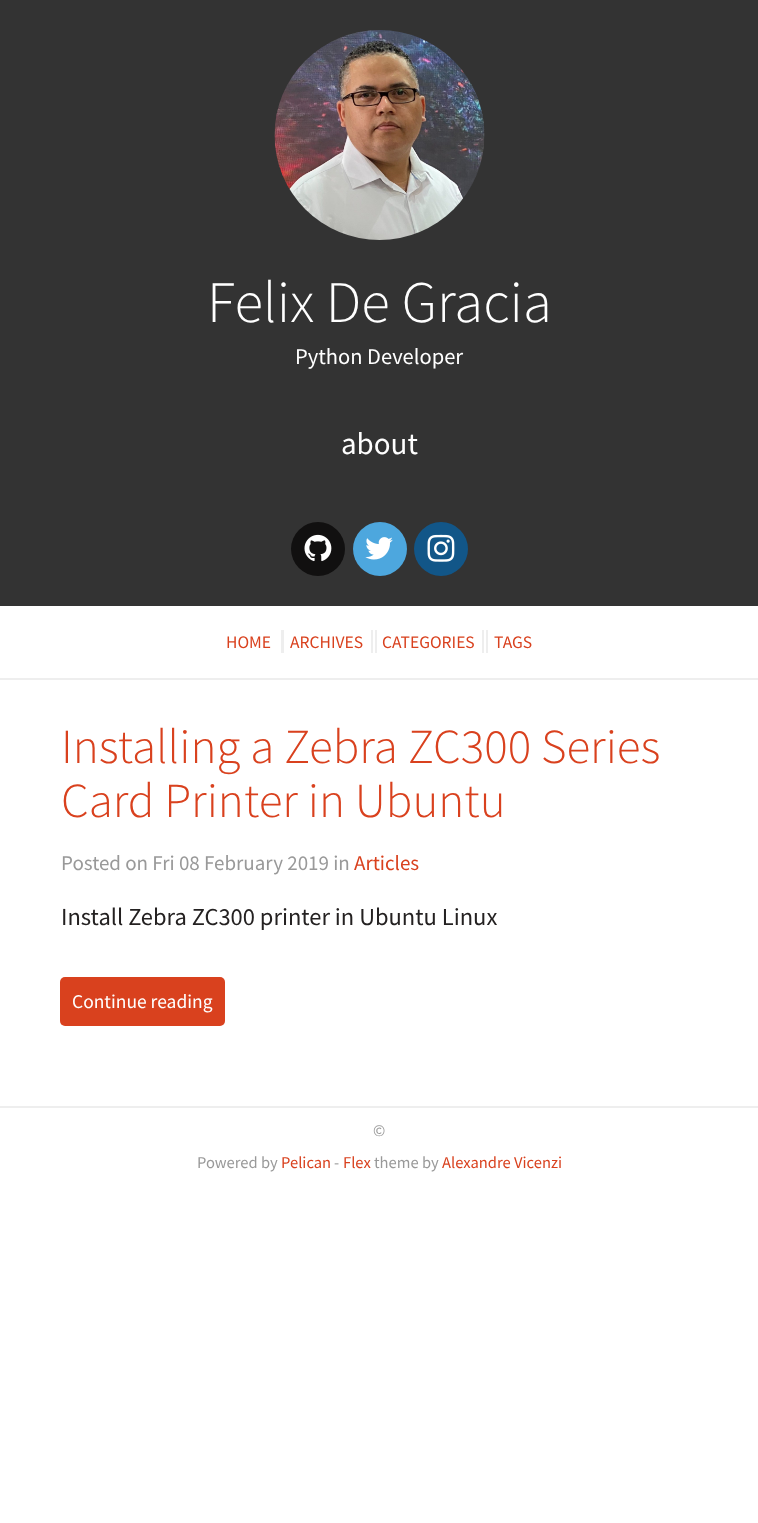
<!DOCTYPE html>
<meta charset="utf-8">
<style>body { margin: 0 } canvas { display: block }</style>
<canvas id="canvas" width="758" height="1523"></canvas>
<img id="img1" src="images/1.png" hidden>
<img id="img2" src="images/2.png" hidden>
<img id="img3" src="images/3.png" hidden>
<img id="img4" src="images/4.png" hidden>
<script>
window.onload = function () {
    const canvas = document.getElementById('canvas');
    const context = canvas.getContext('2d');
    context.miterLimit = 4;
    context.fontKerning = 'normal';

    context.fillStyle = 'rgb(255, 255, 255)';
    context.fillRect(0, 0, 758, 1523);
    context.fillStyle = 'rgb(51, 51, 51)';
    context.fillRect(0, 0, 758, 606);
    context.drawImage(document.getElementById('img1'), 274, 30, 211, 210);
    context.fillStyle = 'rgb(17, 16, 16)';
    context.beginPath();
    context.arc(318, 549, 27, 0, 2 * Math.PI);
    context.fill();
    context.drawImage(document.getElementById('img2'), 304, 534, 28, 28);
    context.fillStyle = 'rgb(77, 167, 222)';
    context.beginPath();
    context.arc(380, 549, 27, 0, 2 * Math.PI);
    context.fill();
    context.drawImage(document.getElementById('img3'), 365, 537, 28, 23);
    context.fillStyle = 'rgb(18, 86, 136)';
    context.beginPath();
    context.arc(441, 549, 27, 0, 2 * Math.PI);
    context.fill();
    context.drawImage(document.getElementById('img4'), 427, 534, 28, 28);
    context.fillStyle = 'rgb(238, 238, 238)';
    context.fillRect(0, 678, 758, 2);
    context.fillRect(281, 630, 3, 23);
    context.fillRect(371, 630, 2, 23);
    context.fillRect(482, 630, 2, 23);
    context.fillRect(375, 630, 2, 23);
    context.fillRect(486, 630, 2, 23);
    context.fillStyle = 'rgb(217, 65, 30)';
    context.beginPath();
    context.roundRect(60, 977, 165, 49, 5);
    context.fill();
    context.fillStyle = 'rgb(238, 238, 238)';
    context.fillRect(0, 1106, 758, 2);
    context.font = '300 58.75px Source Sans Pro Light';
    context.fillStyle = 'rgb(255, 255, 255)';
    context.fillText('Felix De Gracia', 207, 322);
    context.font = '22.5px Source Sans Pro';
    context.fillText('Python Developer', 295, 364);
    context.font = '31px Source Sans Pro';
    context.fillText('about', 341, 454);
    context.font = '17.5px Source Sans Pro';
    context.fillStyle = 'rgb(217, 65, 30)';
    context.fillText('HOME', 226, 648);
    context.fillText('ARCHIVES', 290, 648);
    context.fillText('CATEGORIES', 382, 648);
    context.fillText('TAGS', 494, 648);
    context.font = '300 49px Source Sans Pro Light';
    context.fillText('Installing a Zebra ZC300 Series', 61, 763);
    context.fillText('Card Printer in Ubuntu', 61, 817);
    context.font = '21px Source Sans Pro';
    context.fillStyle = 'rgb(153, 153, 153)';
    context.fillText('Posted on Fri 08 February 2019 in', 61, 870);
    context.fillStyle = 'rgb(217, 65, 30)';
    context.fillText('Articles', 354, 870);
    context.font = '24.5px Source Sans Pro';
    context.fillStyle = 'rgb(36, 33, 33)';
    context.fillText('Install Zebra ZC300 printer in Ubuntu Linux', 61, 925);
    context.font = '19.5px Source Sans Pro';
    context.fillStyle = 'rgb(255, 255, 255)';
    context.fillText('Continue reading', 72, 1008);
    context.font = '16.5px Source Sans Pro';
    context.fillStyle = 'rgb(153, 153, 153)';
    context.fillText('©', 373, 1136);
    context.fillText('Powered by', 197, 1168);
    context.fillStyle = 'rgb(217, 65, 30)';
    context.fillText('Pelican', 281, 1168);
    context.fillStyle = 'rgb(153, 153, 153)';
    context.fillText('-', 334, 1168);
    context.fillStyle = 'rgb(217, 65, 30)';
    context.fillText('Flex', 343, 1168);
    context.fillStyle = 'rgb(153, 153, 153)';
    context.fillText('theme by', 374, 1168);
    context.fillStyle = 'rgb(217, 65, 30)';
    context.fillText('Alexandre Vicenzi', 442, 1168);
};
</script>
